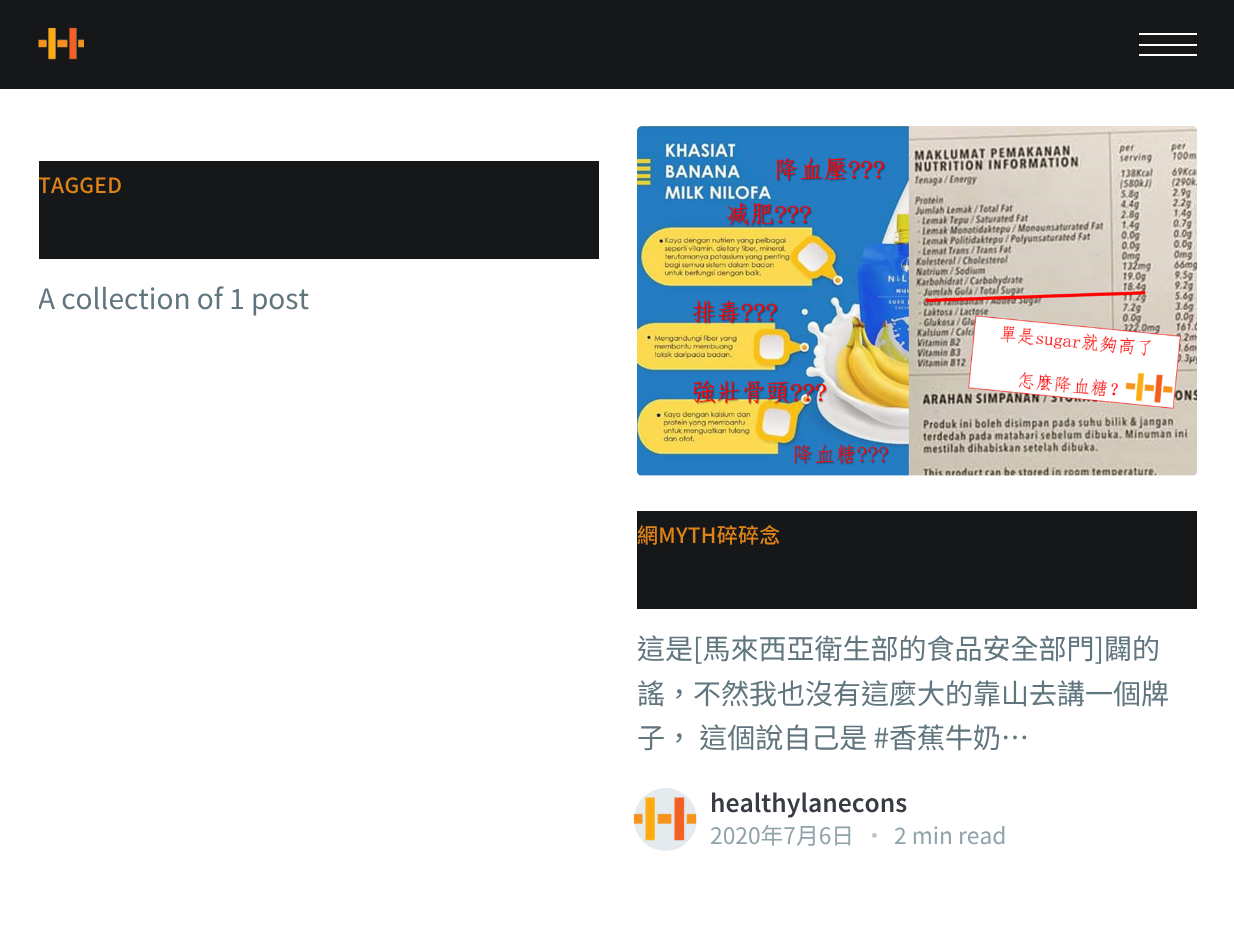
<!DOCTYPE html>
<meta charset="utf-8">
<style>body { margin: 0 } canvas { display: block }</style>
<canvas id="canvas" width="1234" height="941"></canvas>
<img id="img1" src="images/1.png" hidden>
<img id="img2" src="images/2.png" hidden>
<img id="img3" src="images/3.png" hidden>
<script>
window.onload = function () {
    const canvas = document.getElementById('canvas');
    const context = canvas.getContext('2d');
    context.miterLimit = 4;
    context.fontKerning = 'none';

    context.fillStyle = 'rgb(255, 255, 255)';
    context.fillRect(0, 0, 1234, 941);
    context.fillStyle = 'rgb(22, 23, 25)';
    context.fillRect(0, 0, 1234, 89);
    context.drawImage(document.getElementById('img1'), 38, 27, 46, 33);
    context.fillStyle = 'rgb(255, 255, 255)';
    context.fillRect(1139, 33, 58, 2);
    context.fillRect(1139, 54, 58, 2);
    context.fillRect(1139, 44, 58, 2);
    context.fillStyle = 'rgb(22, 23, 25)';
    context.fillRect(39, 161, 560, 98);
    context.fillStyle = 'rgb(197, 210, 217)';
    context.beginPath();
    context.roundRect(637, 126, 560, 350, 5);
    context.fill();
    context.drawImage(document.getElementById('img2'), 637, 126, 560, 350);
    context.fillStyle = 'rgb(22, 23, 25)';
    context.fillRect(637, 511, 560, 98);
    context.fillStyle = 'rgb(228, 234, 237)';
    context.beginPath();
    context.arc(665.5, 819.5, 31.5, 0, 2 * Math.PI);
    context.fill();
    context.drawImage(document.getElementById('img3'), 633, 797, 64, 44);
    context.letterSpacing = '0.25px';
    context.font = '500 21px Noto Sans TC';
    context.fillStyle = 'rgb(223, 131, 25)';
    context.fillText('TAGGED', 38, 193);
    context.save();
    context.beginPath();
    context.rect(39, 275, 560, 45);
    context.clip();
    context.letterSpacing = '0px';
    context.font = '28px Noto Sans TC';
    context.fillStyle = 'rgb(96, 117, 126)';
    context.fillText('A collection of 1 post', 38, 309);
    context.restore();
    context.fillText('網MYTH碎碎念', 637, 543);
    context.letterSpacing = '0px';
    context.font = '28px Noto Sans TC';
    context.fillStyle = 'rgb(96, 117, 126)';
    context.fillText('這是[馬來西亞衛生部的食品安全部門]闢的', 637, 659);
    context.fillText('謠，不然我也沒有這麼大的靠山去講一個牌', 637, 704);
    context.fillText('子， 這個說自己是 #香蕉牛奶…', 637, 748);
    context.font = '600 24.5px Noto Sans TC';
    context.fillStyle = 'rgb(55, 60, 68)';
    context.fillText('healthylanecons', 710, 812);
    context.font = '22.75px Noto Sans TC';
    context.fillStyle = 'rgb(144, 162, 170)';
    context.fillText('2020年7月6日', 710, 844);
    context.fillStyle = 'rgb(188, 199, 204)';
    context.fillText('•', 863, 844);
    context.fillStyle = 'rgb(144, 162, 170)';
    context.fillText('2 min read', 894, 844);
};
</script>
